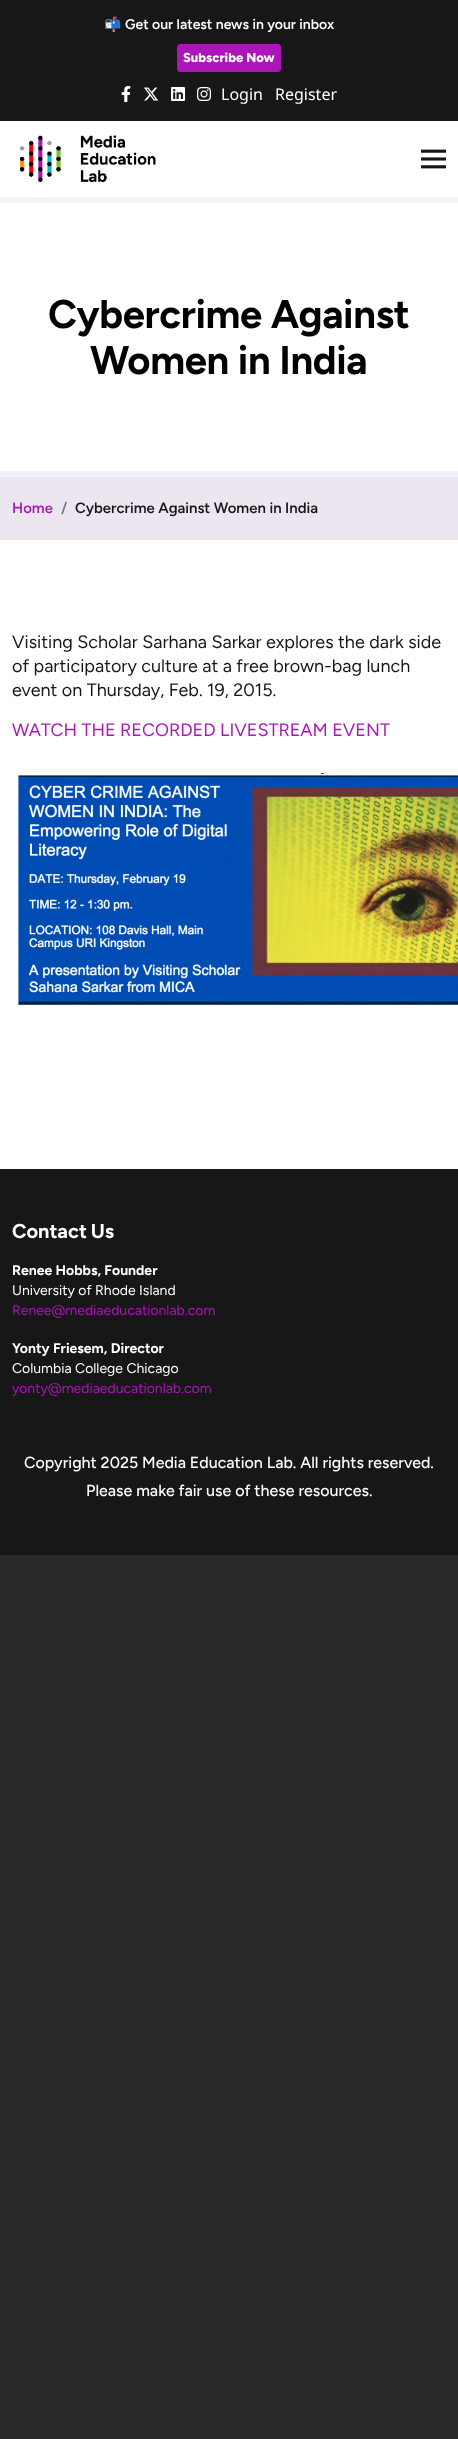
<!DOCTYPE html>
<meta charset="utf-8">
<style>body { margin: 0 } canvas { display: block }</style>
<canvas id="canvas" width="458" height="2439"></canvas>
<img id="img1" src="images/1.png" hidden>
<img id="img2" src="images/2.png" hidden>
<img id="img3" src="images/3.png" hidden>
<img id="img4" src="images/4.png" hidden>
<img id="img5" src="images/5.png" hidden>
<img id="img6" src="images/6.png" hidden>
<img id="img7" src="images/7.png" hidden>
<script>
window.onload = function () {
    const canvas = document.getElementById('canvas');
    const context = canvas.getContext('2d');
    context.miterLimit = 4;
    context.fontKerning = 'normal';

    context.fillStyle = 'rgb(41, 41, 41)';
    context.fillRect(0, 0, 458, 2439);
    context.fillStyle = 'rgb(255, 255, 255)';
    context.fillRect(0, 121, 458, 1048);
    context.fillStyle = 'rgb(23, 23, 23)';
    context.fillRect(0, 0, 458, 121);
    context.fillStyle = 'rgb(170, 22, 183)';
    context.beginPath();
    context.roundRect(177.5, 44.5, 103, 27, 2.5);
    context.fill();
    context.strokeStyle = 'rgb(170, 22, 183)';
    context.stroke();
    context.drawImage(document.getElementById('img1'), 121, 86, 10, 16);
    context.drawImage(document.getElementById('img2'), 144, 87, 15, 14);
    context.drawImage(document.getElementById('img3'), 171, 87, 14, 14);
    context.drawImage(document.getElementById('img4'), 197, 87, 14, 14);
    context.drawImage(document.getElementById('img5'), 19, 135, 137, 48);
    context.drawImage(document.getElementById('img6'), 421, 149, 25, 20);
    context.fillStyle = 'rgb(241, 244, 247)';
    context.fillRect(0, 197, 458, 6);
    context.fillRect(0, 471, 458, 6);
    context.fillStyle = 'rgb(235, 230, 240)';
    context.fillRect(0, 477, 458, 63);
    context.drawImage(document.getElementById('img7'), 18, 773, 440, 232);
    context.fillStyle = 'rgb(23, 23, 23)';
    context.fillRect(0, 1169, 458, 386);
    context.font = 'bold 14px Noto Color Emoji';
    context.fillStyle = 'rgb(255, 255, 255)';
    context.fillText('📬', 104, 29);
    context.font = '600 14px Figtree';
    context.fillText('Get our latest news in your inbox', 125, 29);
    context.font = '800 13px Figtree';
    context.fillText('Subscribe Now', 183, 62);
    context.font = '16px Noto Sans';
    context.fillText('Login', 221, 100);
    context.fillText('Register', 275, 100);
    context.letterSpacing = '-0.4px';
    context.font = 'bold 40px Figtree';
    context.fillStyle = 'rgb(0, 0, 0)';
    context.fillText('Cybercrime Against', 48, 328);
    context.fillText('Women in India', 90, 374);
    context.letterSpacing = '0px';
    context.font = '600 14.9px Figtree';
    context.fillStyle = 'rgb(170, 22, 183)';
    context.fillText('Home', 12, 513);
    context.fillStyle = 'rgb(108, 117, 125)';
    context.fillText('/', 61, 513);
    context.fillStyle = 'rgb(23, 23, 23)';
    context.fillText('Cybercrime Against Women in India', 75, 513);
    context.font = '18px Figtree';
    context.fillText('Visiting Scholar Sarhana Sarkar explores the dark side', 12, 648);
    context.fillText('of participatory culture at a free brown-bag lunch', 12, 672);
    context.fillText('event on Thursday, Feb. 19, 2015.', 12, 696);
    context.fillStyle = 'rgb(170, 22, 183)';
    context.fillText('WATCH THE RECORDED LIVESTREAM EVENT', 12, 736);
    context.wordSpacing = '-1px';
    context.font = 'bold 20px Figtree';
    context.fillStyle = 'rgb(255, 255, 255)';
    context.fillText('Contact Us', 12, 1238);
    context.wordSpacing = '0px';
    context.font = 'bold 14px Figtree';
    context.fillText('Renee Hobbs, Founder', 12, 1275);
    context.font = '14px Figtree';
    context.fillText('University of Rhode Island', 12, 1295);
    context.fillStyle = 'rgb(170, 22, 183)';
    context.fillText('Renee@mediaeducationlab.com', 12, 1315);
    context.font = 'bold 14px Figtree';
    context.fillStyle = 'rgb(255, 255, 255)';
    context.fillText('Yonty Friesem, Director', 12, 1353);
    context.font = '14px Figtree';
    context.fillText('Columbia College Chicago', 12, 1373);
    context.fillStyle = 'rgb(170, 22, 183)';
    context.fillText('yonty@mediaeducationlab.com', 12, 1393);
    context.font = '500 16px Figtree';
    context.fillStyle = 'rgb(255, 255, 255)';
    context.fillText('Copyright 2025 Media Education Lab. All rights reserved.', 24, 1468);
    context.fillText('Please make fair use of these resources.', 86, 1496);
};
</script>
